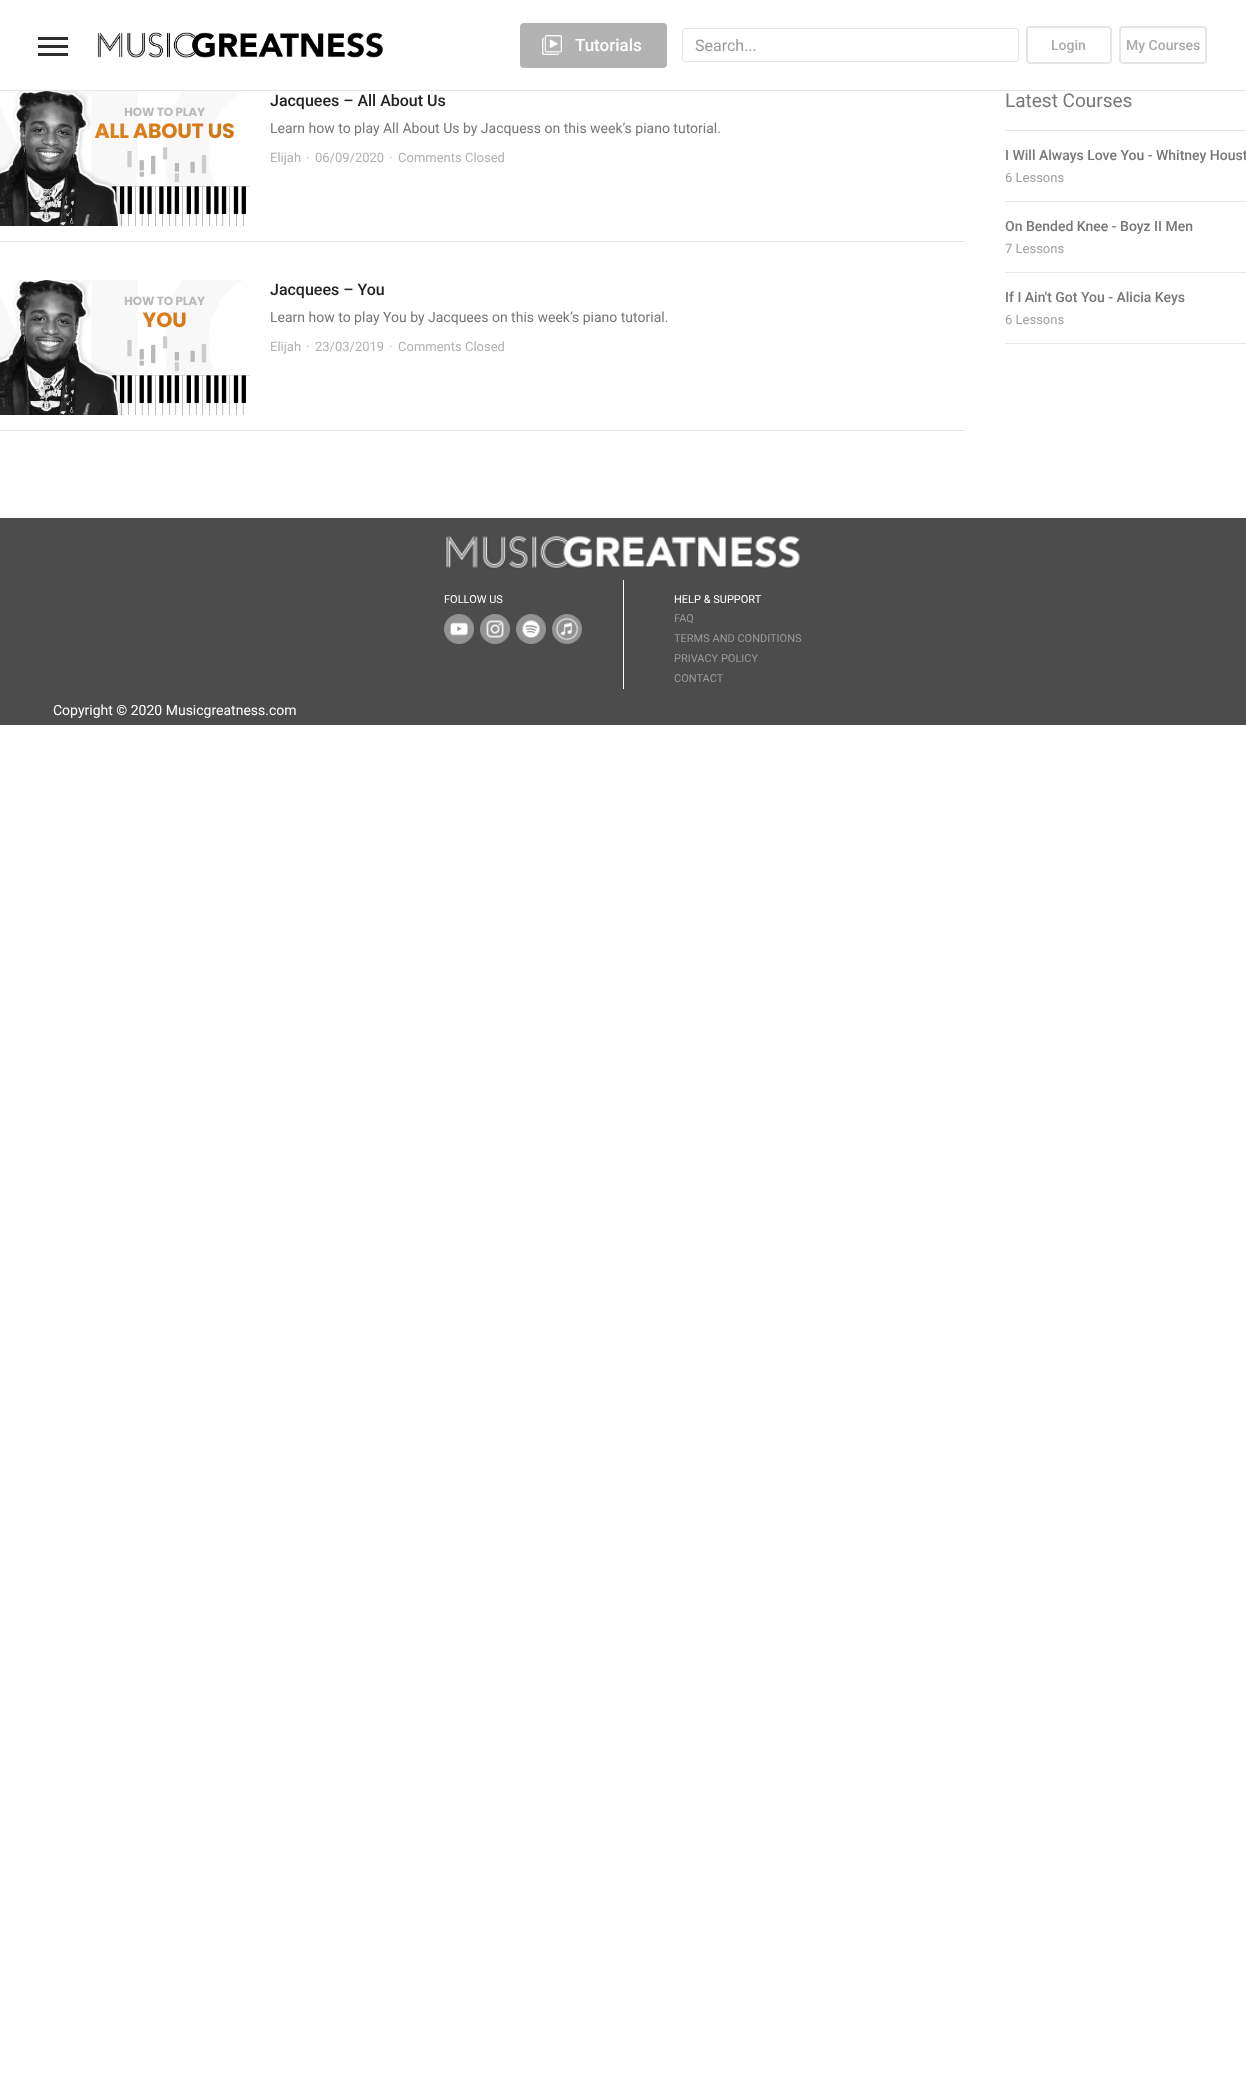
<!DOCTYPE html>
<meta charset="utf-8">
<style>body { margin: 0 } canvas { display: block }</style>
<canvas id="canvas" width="1246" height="2081"></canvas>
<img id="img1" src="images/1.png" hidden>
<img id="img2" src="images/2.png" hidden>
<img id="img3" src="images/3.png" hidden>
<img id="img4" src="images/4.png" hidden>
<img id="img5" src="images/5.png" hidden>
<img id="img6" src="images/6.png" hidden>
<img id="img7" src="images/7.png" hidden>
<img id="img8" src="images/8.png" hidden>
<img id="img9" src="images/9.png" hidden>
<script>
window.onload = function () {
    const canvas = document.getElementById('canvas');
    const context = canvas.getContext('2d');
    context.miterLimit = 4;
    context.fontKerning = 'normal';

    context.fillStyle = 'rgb(255, 255, 255)';
    context.fillRect(0, 0, 1246, 2081);
    context.fillStyle = 'rgb(230, 230, 230)';
    context.fillRect(0, 90, 1246, 1);
    context.fillStyle = 'rgb(45, 45, 45)';
    context.fillRect(38, 45, 30, 3);
    context.fillRect(38, 37, 30, 3);
    context.fillRect(38, 53, 30, 3);
    context.drawImage(document.getElementById('img1'), 97, 32, 286, 26);
    context.fillStyle = 'rgb(179, 179, 179)';
    context.beginPath();
    context.roundRect(520, 23, 147, 45, 4);
    context.fill();
    context.drawImage(document.getElementById('img2'), 542, 35, 20, 20);
    context.beginPath();
    context.roundRect(682.5, 28.5, 336, 33, 2.5);
    context.strokeStyle = 'rgb(230, 230, 230)';
    context.stroke();
    context.beginPath();
    context.roundRect(1027, 27, 84, 36, 3);
    context.lineWidth = 2;
    context.stroke();
    context.beginPath();
    context.roundRect(1120, 27, 86, 36, 3);
    context.stroke();
    context.fillStyle = 'rgb(230, 230, 230)';
    context.fillRect(0, 241, 965, 1);
    context.drawImage(document.getElementById('img3'), 0, 91, 250, 135);
    context.fillRect(0, 430, 965, 1);
    context.drawImage(document.getElementById('img4'), 0, 280, 250, 135);
    context.fillRect(1005, 130, 241, 1);
    context.fillRect(1005, 201, 241, 1);
    context.fillRect(1005, 272, 241, 1);
    context.fillRect(1005, 343, 241, 1);
    context.fillStyle = 'rgb(76, 76, 76)';
    context.fillRect(0, 518, 1246, 207);
    context.drawImage(document.getElementById('img5'), 446, 536, 354, 33);
    context.drawImage(document.getElementById('img6'), 444, 614, 30, 30);
    context.drawImage(document.getElementById('img7'), 480, 614, 30, 30);
    context.drawImage(document.getElementById('img8'), 516, 614, 30, 30);
    context.drawImage(document.getElementById('img9'), 552, 614, 30, 30);
    context.fillStyle = 'rgb(255, 255, 255)';
    context.fillRect(623, 580, 1, 109);
    context.font = '500 17px Roboto';
    context.fillText('Tutorials', 575, 51);
    context.font = '16px Roboto';
    context.fillStyle = 'rgb(153, 153, 153)';
    context.fillText('Search...', 695, 51);
    context.font = '500 14px Roboto';
    context.fillStyle = 'rgb(170, 170, 170)';
    context.fillText('Login', 1051, 50);
    context.fillText('My Courses', 1126, 50);
    context.font = '500 16px Roboto';
    context.fillStyle = 'rgb(35, 35, 35)';
    context.fillText('Jacquees – All About Us', 270, 106);
    context.font = '14px Roboto';
    context.fillStyle = 'rgb(119, 119, 119)';
    context.fillText('Learn how to play All About Us by Jacquess on this week’s piano tutorial.', 270, 133);
    context.font = '13px Roboto';
    context.fillStyle = 'rgb(177, 177, 177)';
    context.fillText('Elijah', 270, 162);
    context.fillText('·', 306, 162);
    context.fillText('06/09/2020', 315, 162);
    context.fillText('·', 389, 162);
    context.fillText('Comments Closed', 398, 162);
    context.font = '500 16px Roboto';
    context.fillStyle = 'rgb(35, 35, 35)';
    context.fillText('Jacquees – You', 270, 295);
    context.font = '14px Roboto';
    context.fillStyle = 'rgb(119, 119, 119)';
    context.fillText('Learn how to play You by Jacquees on this week’s piano tutorial.', 270, 322);
    context.font = '13px Roboto';
    context.fillStyle = 'rgb(177, 177, 177)';
    context.fillText('Elijah', 270, 351);
    context.fillText('·', 306, 351);
    context.fillText('23/03/2019', 315, 351);
    context.fillText('·', 389, 351);
    context.fillText('Comments Closed', 398, 351);
    context.font = '19px Roboto';
    context.fillStyle = 'rgb(119, 119, 119)';
    context.fillText('Latest Courses', 1005, 107);
    context.font = '500 14px Roboto';
    context.fillText('I Will Always Love You - Whitney Houst', 1005, 160);
    context.font = '13px Roboto';
    context.fillStyle = 'rgb(160, 160, 160)';
    context.fillText('6 Lessons', 1005, 182);
    context.font = '500 14px Roboto';
    context.fillStyle = 'rgb(119, 119, 119)';
    context.fillText('On Bended Knee - Boyz II Men', 1005, 231);
    context.font = '13px Roboto';
    context.fillStyle = 'rgb(160, 160, 160)';
    context.fillText('7 Lessons', 1005, 253);
    context.font = '500 14px Roboto';
    context.fillStyle = 'rgb(119, 119, 119)';
    context.fillText('If I Ain\'t Got You - Alicia Keys', 1005, 302);
    context.font = '13px Roboto';
    context.fillStyle = 'rgb(160, 160, 160)';
    context.fillText('6 Lessons', 1005, 324);
    context.font = '11px Roboto';
    context.fillStyle = 'rgb(255, 255, 255)';
    context.fillText('FOLLOW US', 444, 603);
    context.fillText('HELP & SUPPORT', 674, 603);
    context.fillStyle = 'rgb(153, 153, 153)';
    context.fillText('FAQ', 674, 622);
    context.fillText('TERMS AND CONDITIONS', 674, 642);
    context.fillText('PRIVACY POLICY', 674, 662);
    context.fillText('CONTACT', 674, 682);
    context.font = '14px Roboto';
    context.fillStyle = 'rgb(255, 255, 255)';
    context.fillText('Copyright © 2020 Musicgreatness.com', 53, 715);
};
</script>
